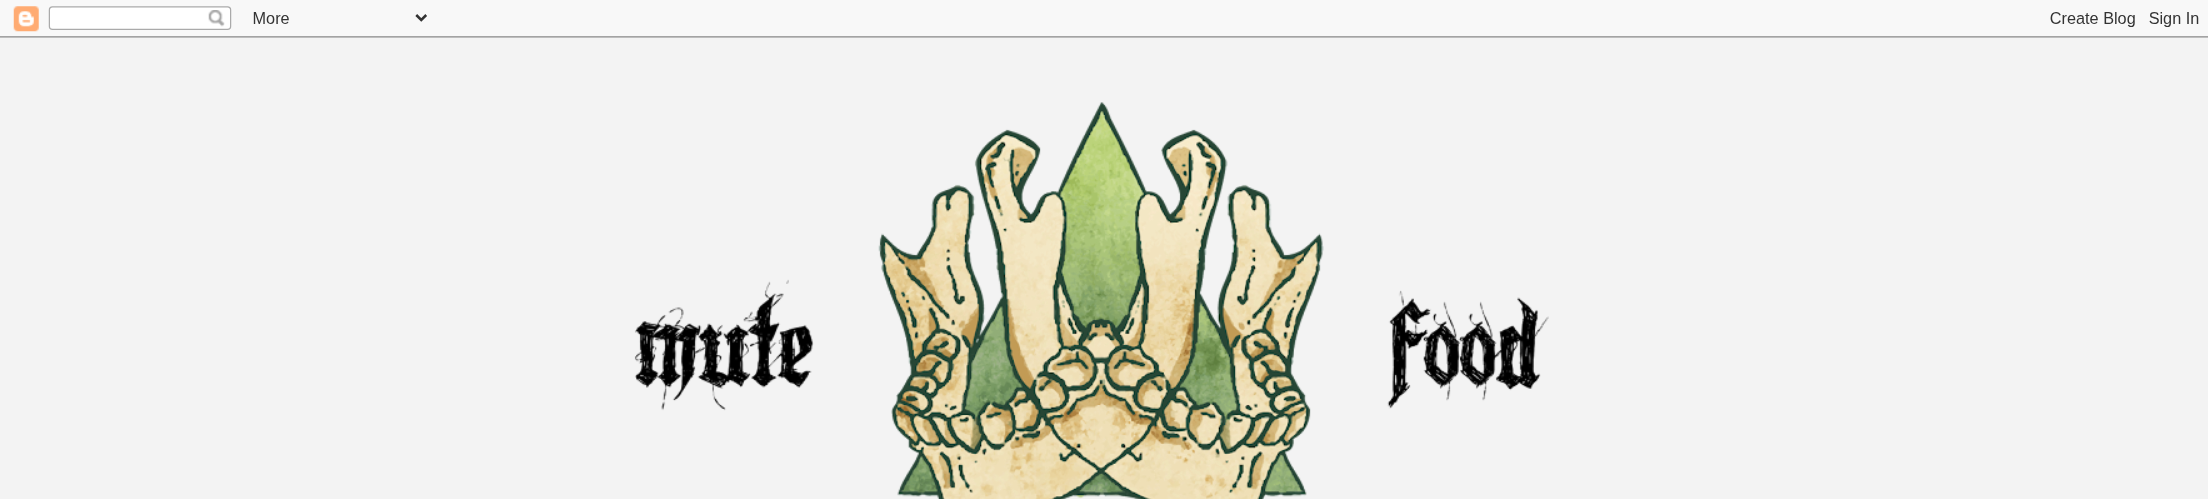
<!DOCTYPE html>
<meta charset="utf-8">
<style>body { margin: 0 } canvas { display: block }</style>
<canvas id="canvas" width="2208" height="499"></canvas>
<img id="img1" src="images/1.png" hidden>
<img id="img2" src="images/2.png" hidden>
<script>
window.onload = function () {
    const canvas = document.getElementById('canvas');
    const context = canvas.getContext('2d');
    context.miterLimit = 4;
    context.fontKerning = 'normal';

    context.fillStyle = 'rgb(243, 243, 243)';
    context.fillRect(0, 0, 2208, 499);
    context.drawImage(document.getElementById('img1'), 0, 0, 2208, 38);
    context.drawImage(document.getElementById('img2'), 634, 102, 915, 397);
};
</script>
